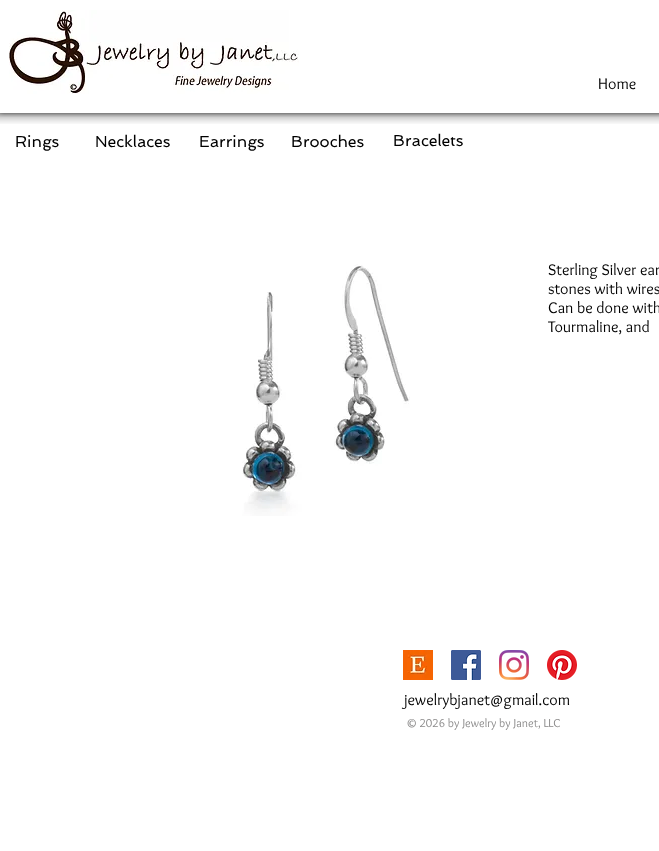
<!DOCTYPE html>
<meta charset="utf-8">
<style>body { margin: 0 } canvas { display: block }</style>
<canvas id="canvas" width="659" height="851"></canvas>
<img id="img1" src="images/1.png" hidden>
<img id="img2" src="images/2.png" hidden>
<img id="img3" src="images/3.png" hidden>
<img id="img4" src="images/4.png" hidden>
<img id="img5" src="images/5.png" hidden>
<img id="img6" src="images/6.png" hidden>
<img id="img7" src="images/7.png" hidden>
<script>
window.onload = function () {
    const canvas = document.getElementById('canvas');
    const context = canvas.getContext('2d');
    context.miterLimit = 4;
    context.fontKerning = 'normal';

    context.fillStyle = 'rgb(255, 255, 255)';
    context.fillRect(0, 0, 659, 851);
    context.save();
    context.beginPath();
    context.rect(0, 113, 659, 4);
    context.clip();
    context.fillStyle = 'rgba(0, 0, 0, 0.5)';
    context.filter = 'blur(2.5px)';
    context.beginPath();
    context.rect(0, 0, 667, 113);
    context.fill();
    context.filter = 'none';
    context.restore();
    context.drawImage(document.getElementById('img1'), 9, 10, 290, 84);
    context.drawImage(document.getElementById('img2'), 0, 113, 659, 11);
    context.drawImage(document.getElementById('img3'), 242, 264, 168, 252);
    context.drawImage(document.getElementById('img4'), 403, 650, 30, 30);
    context.drawImage(document.getElementById('img5'), 451, 650, 30, 30);
    context.drawImage(document.getElementById('img6'), 499, 650, 30, 30);
    context.drawImage(document.getElementById('img7'), 547, 650, 30, 30);
    context.font = '16px Overlock';
    context.fillStyle = 'rgb(0, 0, 0)';
    context.fillText('Home', 598, 89);
    context.font = '16px Spinnaker';
    context.fillText('Rings', 15, 147);
    context.fillText('Necklaces', 95, 147);
    context.fillText('Earrings', 199, 147);
    context.fillText('Brooches', 291, 147);
    context.fillText('Bracelets', 393, 146);
    context.font = '16px Overlock';
    context.fillText('Sterling Silver ear', 548, 275);
    context.fillText('stones with wires', 548, 294);
    context.fillText('Can be done with', 548, 313);
    context.fillText('Tourmaline, and', 548, 332);
    context.fillText('jewelrybjanet@gmail.com', 404, 705);
    context.font = '12px Overlock';
    context.fillStyle = 'rgb(139, 138, 138)';
    context.fillText('© 2026 by Jewelry by Janet, LLC', 406, 727);
};
</script>
